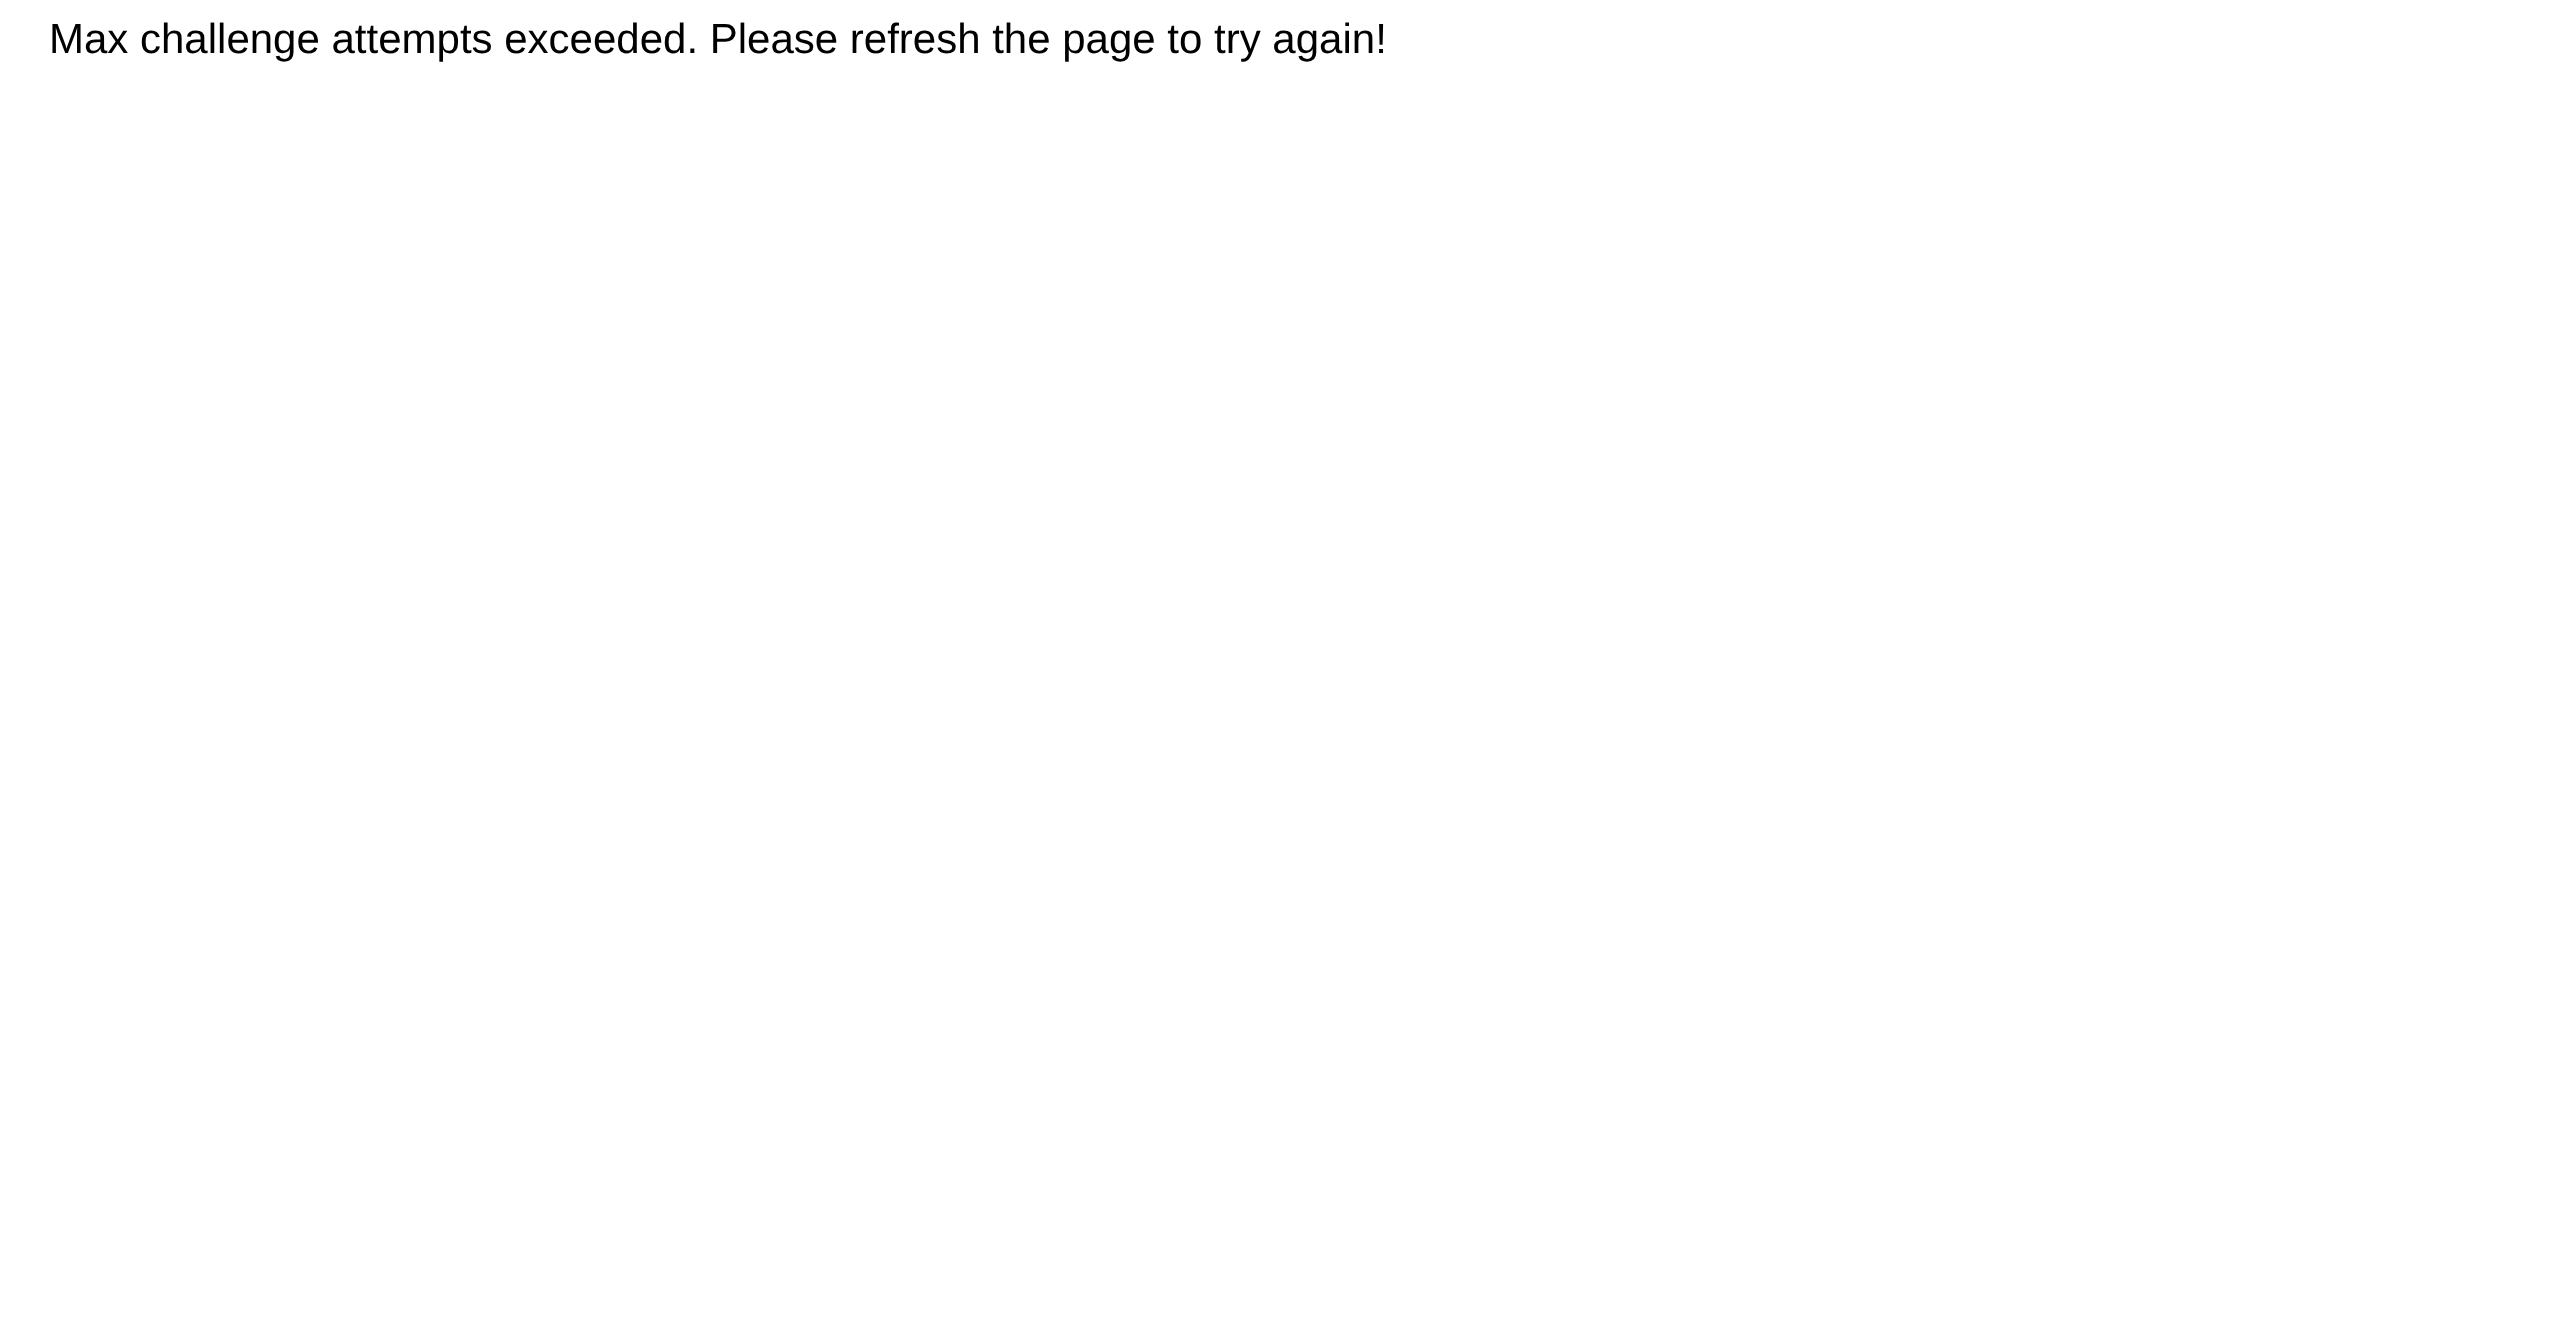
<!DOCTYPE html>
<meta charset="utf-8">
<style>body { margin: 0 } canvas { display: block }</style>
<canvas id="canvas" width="2570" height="1336"></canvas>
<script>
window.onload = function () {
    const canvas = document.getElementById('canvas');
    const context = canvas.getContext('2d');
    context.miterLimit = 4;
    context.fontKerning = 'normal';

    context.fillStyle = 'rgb(255, 255, 255)';
    context.fillRect(0, 0, 2570, 1336);
    context.font = '42px Liberation Sans';
    context.fillStyle = 'rgb(0, 0, 0)';
    context.fillText('Max challenge attempts exceeded. Please refresh the page to try again!', 49, 53);
};
</script>
